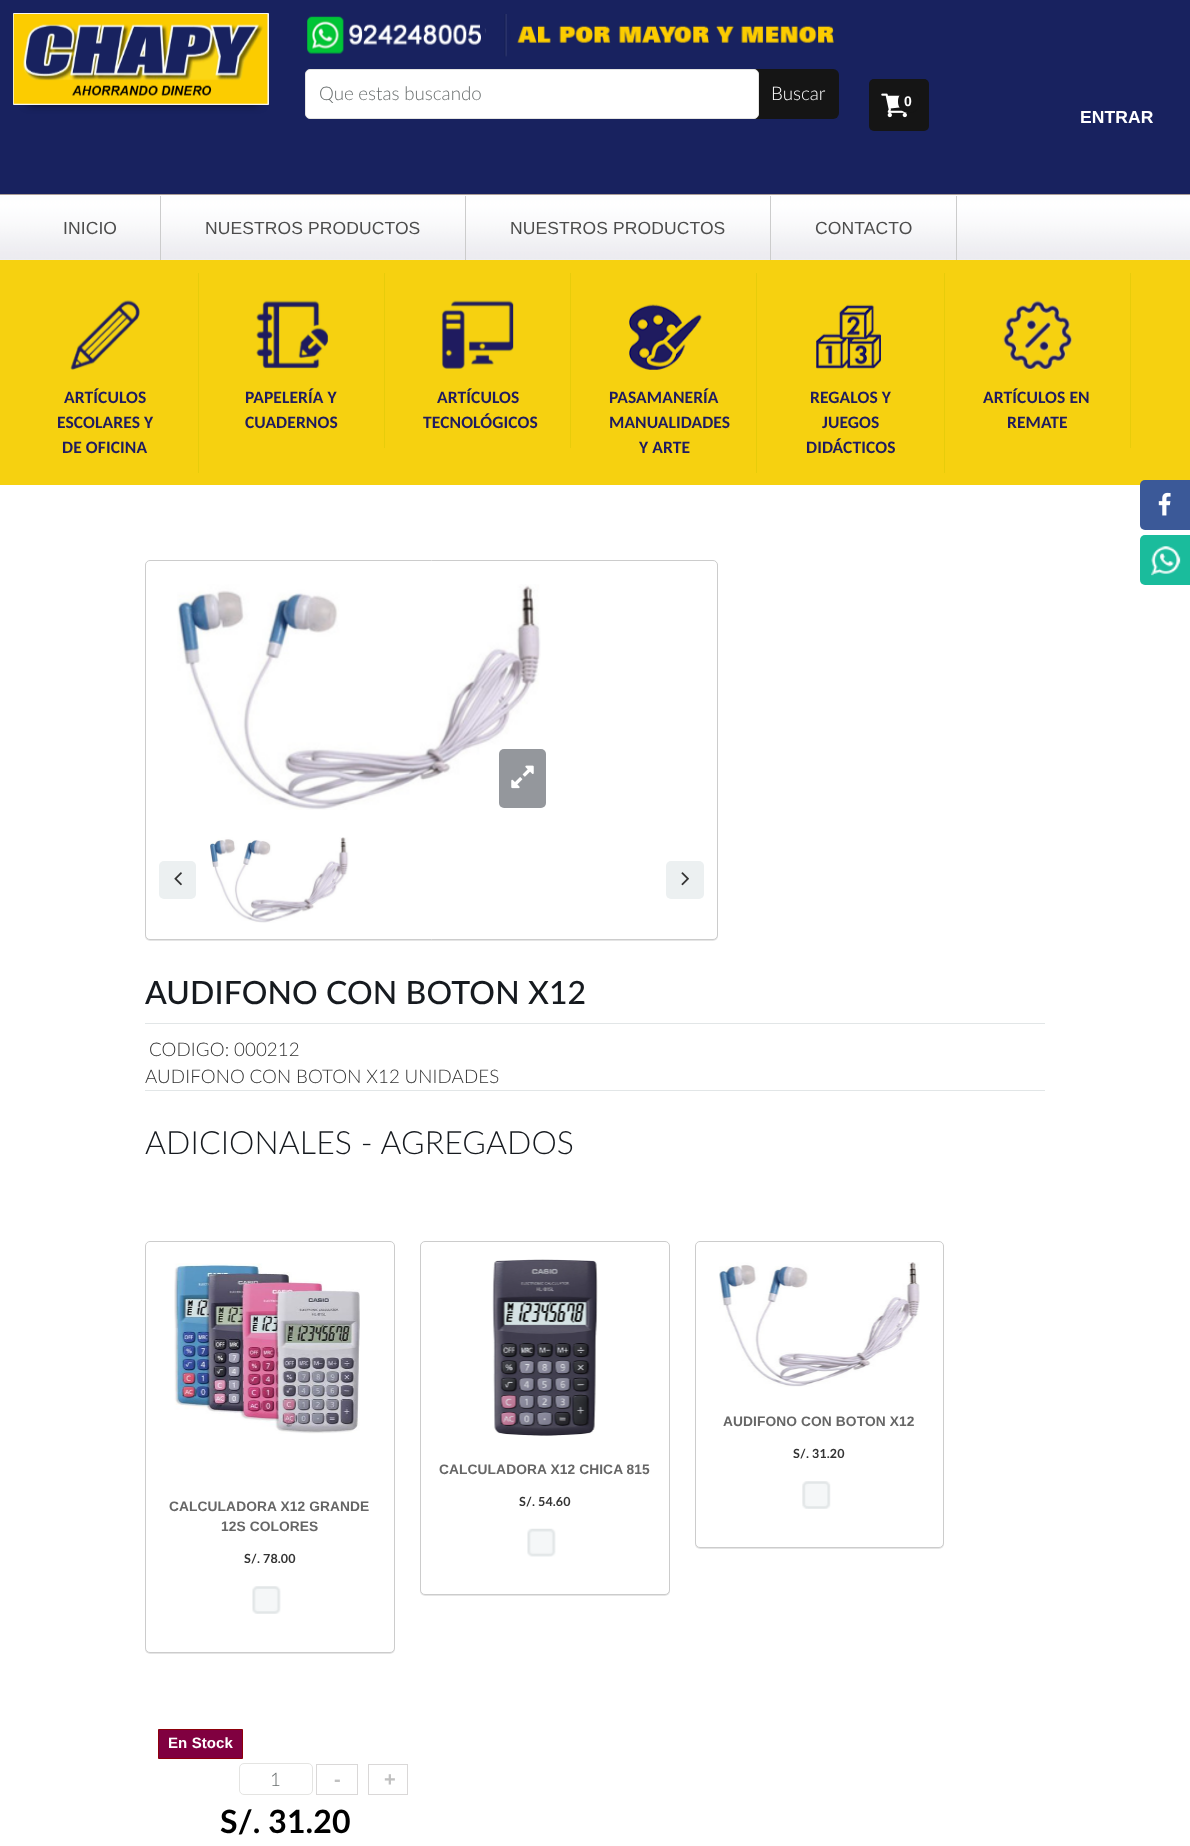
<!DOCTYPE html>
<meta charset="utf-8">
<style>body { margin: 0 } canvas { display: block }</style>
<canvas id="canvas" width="1190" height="1846"></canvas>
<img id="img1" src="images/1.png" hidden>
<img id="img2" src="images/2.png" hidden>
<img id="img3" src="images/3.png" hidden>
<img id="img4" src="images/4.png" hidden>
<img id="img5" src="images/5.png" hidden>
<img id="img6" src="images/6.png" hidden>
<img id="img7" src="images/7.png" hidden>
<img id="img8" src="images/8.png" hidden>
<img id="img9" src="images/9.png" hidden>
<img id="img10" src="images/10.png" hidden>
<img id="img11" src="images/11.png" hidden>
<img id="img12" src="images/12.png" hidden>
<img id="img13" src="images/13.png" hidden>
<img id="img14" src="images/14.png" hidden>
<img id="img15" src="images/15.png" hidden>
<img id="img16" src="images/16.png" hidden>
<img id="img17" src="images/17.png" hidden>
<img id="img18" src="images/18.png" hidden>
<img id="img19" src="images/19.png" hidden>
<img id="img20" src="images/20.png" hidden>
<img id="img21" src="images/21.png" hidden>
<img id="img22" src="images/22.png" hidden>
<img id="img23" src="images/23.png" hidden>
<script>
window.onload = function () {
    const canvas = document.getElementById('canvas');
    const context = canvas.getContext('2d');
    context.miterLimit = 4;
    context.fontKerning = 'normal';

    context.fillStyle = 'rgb(255, 255, 255)';
    context.fillRect(0, 0, 1190, 1846);
    context.fillStyle = 'rgb(24, 34, 95)';
    context.fillRect(0, 0, 1190, 194);
    context.fillStyle = 'rgb(0, 0, 0)';
    context.filter = 'blur(5px)';
    context.beginPath();
    context.rect(28, 35, 231, 68);
    context.fill();
    context.filter = 'none';
    context.fillStyle = 'rgb(255, 255, 255)';
    context.beginPath();
    context.rect(13.5, 13.5, 255, 91);
    context.fill();
    context.strokeStyle = 'rgb(246, 246, 246)';
    context.stroke();
    context.drawImage(document.getElementById('img1'), 13, 14, 255, 90);
    context.drawImage(document.getElementById('img2'), 307, 14, 527, 43);
    context.fillStyle = 'rgb(21, 21, 21)';
    context.beginPath();
    context.roundRect(305, 69, 534, 50, 6);
    context.fill();
    context.fillStyle = 'rgb(255, 255, 255)';
    context.beginPath();
    context.roundRect(305.5, 69.5, 453, 49, 4.5);
    context.fill();
    context.strokeStyle = 'rgb(228, 228, 226)';
    context.stroke();
    context.fillStyle = 'rgb(21, 21, 21)';
    context.beginPath();
    context.roundRect(869, 79, 60, 52, 5);
    context.fill();
    context.drawImage(document.getElementById('img3'), 881, 93, 26, 25);
    context.beginPath();
    context.roundRect(898, 90, 22, 23, 11);
    context.fill();
    context.fillStyle = 'rgb(151, 135, 127)';
    context.fillRect(0, 194, 1190, 1);
    context.drawImage(document.getElementById('img4'), 0, 194, 1190, 66);
    context.fillStyle = 'rgb(204, 204, 204)';
    context.fillRect(160, 196, 1, 64);
    context.fillRect(465, 196, 1, 64);
    context.fillRect(770, 196, 1, 64);
    context.fillRect(956, 196, 1, 64);
    context.fillStyle = 'rgb(246, 209, 16)';
    context.fillRect(0, 260, 1190, 225);
    context.fillStyle = 'rgb(231, 204, 11)';
    context.fillRect(198, 273, 1, 200);
    context.drawImage(document.getElementById('img5'), 70, 300, 70, 70);
    context.fillRect(384, 273, 1, 175);
    context.drawImage(document.getElementById('img6'), 256, 300, 73, 69);
    context.fillRect(570, 273, 1, 175);
    context.drawImage(document.getElementById('img7'), 441, 300, 73, 69);
    context.fillRect(756, 273, 1, 200);
    context.drawImage(document.getElementById('img8'), 629, 304, 73, 66);
    context.fillRect(944, 273, 1, 200);
    context.drawImage(document.getElementById('img9'), 816, 304, 65, 65);
    context.fillRect(1130, 273, 1, 175);
    context.drawImage(document.getElementById('img10'), 1003, 300, 70, 70);
    context.fillStyle = 'rgb(59, 89, 152)';
    context.beginPath();
    context.roundRect(1140, 480, 50, 50, [5, 0, 0, 5]);
    context.fill();
    context.drawImage(document.getElementById('img11'), 1158, 492, 13, 24);
    context.fillStyle = 'rgb(26, 188, 156)';
    context.beginPath();
    context.roundRect(1140, 535, 50, 50, [5, 0, 0, 5]);
    context.fill();
    context.drawImage(document.getElementById('img12'), 1151, 546, 30, 30);
    context.fillStyle = 'rgba(0, 0, 0, 0.1)';
    context.filter = 'blur(0.5px)';
    context.beginPath();
    context.roundRect(145, 561, 573, 380, 5);
    context.fill();
    context.filter = 'none';
    context.fillStyle = 'rgb(255, 255, 255)';
    context.beginPath();
    context.roundRect(145.5, 560.5, 572, 379, 4.5);
    context.fill();
    context.strokeStyle = 'rgb(204, 204, 204)';
    context.stroke();
    context.drawImage(document.getElementById('img13'), 177, 584, 364, 226);
    context.fillStyle = 'rgb(148, 151, 156)';
    context.beginPath();
    context.roundRect(499, 749, 47, 59, 5);
    context.fill();
    context.drawImage(document.getElementById('img14'), 511, 765, 23, 24);
    context.fillStyle = 'rgb(236, 240, 241)';
    context.beginPath();
    context.roundRect(159, 861, 37, 38, 5);
    context.fill();
    context.drawImage(document.getElementById('img15'), 174, 872, 8, 14);
    context.drawImage(document.getElementById('img16'), 210, 837, 139, 86);
    context.beginPath();
    context.roundRect(666, 861, 38, 38, 5);
    context.fill();
    context.drawImage(document.getElementById('img17'), 681, 872, 8, 14);
    context.fillStyle = 'rgb(226, 230, 231)';
    context.fillRect(145, 1023, 900, 1);
    context.fillRect(145, 1090, 900, 1);
    context.fillStyle = 'rgba(0, 0, 0, 0.1)';
    context.filter = 'blur(0.5px)';
    context.beginPath();
    context.roundRect(695, 1243, 249, 306, 5);
    context.fill();
    context.filter = 'none';
    context.fillStyle = 'rgb(255, 255, 255)';
    context.beginPath();
    context.roundRect(695.5, 1241.5, 248, 306, 4.5);
    context.fill();
    context.stroke();
    context.drawImage(document.getElementById('img18'), 719, 1262, 201, 125);
    context.drawImage(document.getElementById('img19'), 802, 1481, 29, 28);
    context.fillStyle = 'rgba(0, 0, 0, 0.1)';
    context.filter = 'blur(0.5px)';
    context.beginPath();
    context.roundRect(420, 1243, 250, 353, 5);
    context.fill();
    context.filter = 'none';
    context.fillStyle = 'rgb(255, 255, 255)';
    context.beginPath();
    context.roundRect(420.5, 1241.5, 249, 353, 4.5);
    context.fill();
    context.stroke();
    context.drawImage(document.getElementById('img20'), 492, 1259, 106, 177);
    context.drawImage(document.getElementById('img21'), 527, 1528, 29, 29);
    context.fillStyle = 'rgba(0, 0, 0, 0.1)';
    context.filter = 'blur(0.5px)';
    context.beginPath();
    context.roundRect(145, 1243, 250, 411, 5);
    context.fill();
    context.filter = 'none';
    context.fillStyle = 'rgb(255, 255, 255)';
    context.beginPath();
    context.roundRect(145.5, 1241.5, 249, 411, 4.5);
    context.fill();
    context.stroke();
    context.drawImage(document.getElementById('img22'), 174, 1263, 186, 171);
    context.drawImage(document.getElementById('img23'), 252, 1586, 29, 28);
    context.fillStyle = 'rgb(128, 0, 64)';
    context.beginPath();
    context.rect(158.5, 1729.5, 84, 29);
    context.fill();
    context.strokeStyle = 'rgb(142, 0, 10)';
    context.stroke();
    context.beginPath();
    context.roundRect(239.5, 1763.5, 73, 31, 4.5);
    context.strokeStyle = 'rgb(228, 228, 226)';
    context.stroke();
    context.strokeStyle = 'rgb(218, 216, 216)';
    context.strokeRect(316.5, 1764.5, 41, 30);
    context.strokeRect(368.5, 1764.5, 39, 30);
    context.wordSpacing = '-0.5px';
    context.font = '300 18.75px Lato';
    context.fillStyle = 'rgb(105, 110, 110)';
    context.fillText('Que estas buscando', 319, 100);
    context.wordSpacing = '0px';
    context.fillStyle = 'rgb(255, 255, 255)';
    context.fillText('Buscar', 771, 100);
    context.letterSpacing = '0.1px';
    context.font = 'bold 14px Liberation Sans';
    context.fillText('0', 904, 106);
    context.font = 'bold 17.5px Liberation Sans';
    context.fillText('ENTRAR', 1080, 123);
    context.font = '17.5px Liberation Sans';
    context.fillStyle = 'rgb(76, 76, 76)';
    context.fillText('INICIO', 63, 234);
    context.fillText('NUESTROS PRODUCTOS', 205, 234);
    context.fillText('NUESTROS PRODUCTOS', 510, 234);
    context.fillText('CONTACTO', 815, 234);
    context.font = 'bold 17.5px Carlito';
    context.fillStyle = 'rgb(31, 27, 95)';
    context.fillText('ARTÍCULOS', 64, 403);
    context.fillText('ESCOLARES Y', 57, 428);
    context.fillText('DE OFICINA', 62, 453);
    context.fillText('PAPELERÍA Y', 245, 403);
    context.fillText('CUADERNOS', 245, 428);
    context.fillText('ARTÍCULOS', 437, 403);
    context.fillText('TECNOLÓGICOS', 423, 428);
    context.fillText('PASAMANERÍA', 609, 403);
    context.fillText('MANUALIDADES', 609, 428);
    context.fillText('Y ARTE', 639, 453);
    context.fillText('REGALOS Y', 810, 403);
    context.fillText('JUEGOS', 822, 428);
    context.fillText('DIDÁCTICOS', 806, 453);
    context.fillText('ARTÍCULOS EN', 983, 403);
    context.fillText('REMATE', 1007, 428);
    context.font = '500 32px Lato';
    context.fillStyle = 'rgb(22, 26, 31)';
    context.fillText('AUDIFONO CON BOTON X12', 145, 1004);
    context.wordSpacing = '-0.5px';
    context.font = '300 18.75px Lato';
    context.fillStyle = 'rgb(51, 51, 51)';
    context.fillText('CODIGO: 000212', 149, 1056);
    context.fillText('AUDIFONO CON BOTON X12 UNIDADES', 145, 1083);
    context.wordSpacing = '0px';
    context.font = '300 32px Lato';
    context.fillStyle = 'rgb(22, 26, 31)';
    context.fillText('ADICIONALES - AGREGADOS', 145, 1154);
    context.font = 'bold 13.75px Liberation Sans';
    context.fillStyle = 'rgb(102, 102, 102)';
    context.fillText('AUDIFONO CON BOTON X12', 723, 1426);
    context.font = 'bold 12.5px Lato';
    context.fillStyle = 'rgb(51, 51, 51)';
    context.fillText('S/. 31.20', 793, 1458);
    context.font = 'bold 13.75px Liberation Sans';
    context.fillStyle = 'rgb(102, 102, 102)';
    context.fillText('CALCULADORA X12 CHICA 815', 439, 1474);
    context.font = 'bold 12.5px Lato';
    context.fillStyle = 'rgb(51, 51, 51)';
    context.fillText('S/. 54.60', 519, 1506);
    context.font = 'bold 13.75px Liberation Sans';
    context.fillStyle = 'rgb(102, 102, 102)';
    context.fillText('CALCULADORA X12 GRANDE', 169, 1511);
    context.fillText('12S COLORES', 221, 1531);
    context.font = 'bold 12.5px Lato';
    context.fillStyle = 'rgb(51, 51, 51)';
    context.fillText('S/. 78.00', 244, 1563);
    context.font = 'bold 15px Liberation Sans';
    context.fillStyle = 'rgb(255, 255, 255)';
    context.fillText('En Stock', 168, 1748);
    context.letterSpacing = '0px';
    context.font = '300 18.75px Lato';
    context.fillStyle = 'rgb(105, 110, 110)';
    context.fillText('1', 270, 1786);
    context.letterSpacing = '0.1px';
    context.font = 'bold 20px Liberation Sans';
    context.fillStyle = 'rgb(192, 192, 192)';
    context.fillText('-', 334, 1786);
    context.fillText('+', 384, 1786);
    context.font = 'bold 32px Lato';
    context.fillStyle = 'rgb(0, 0, 0)';
    context.fillText('S/. 31.20', 220, 1833);
};
</script>
